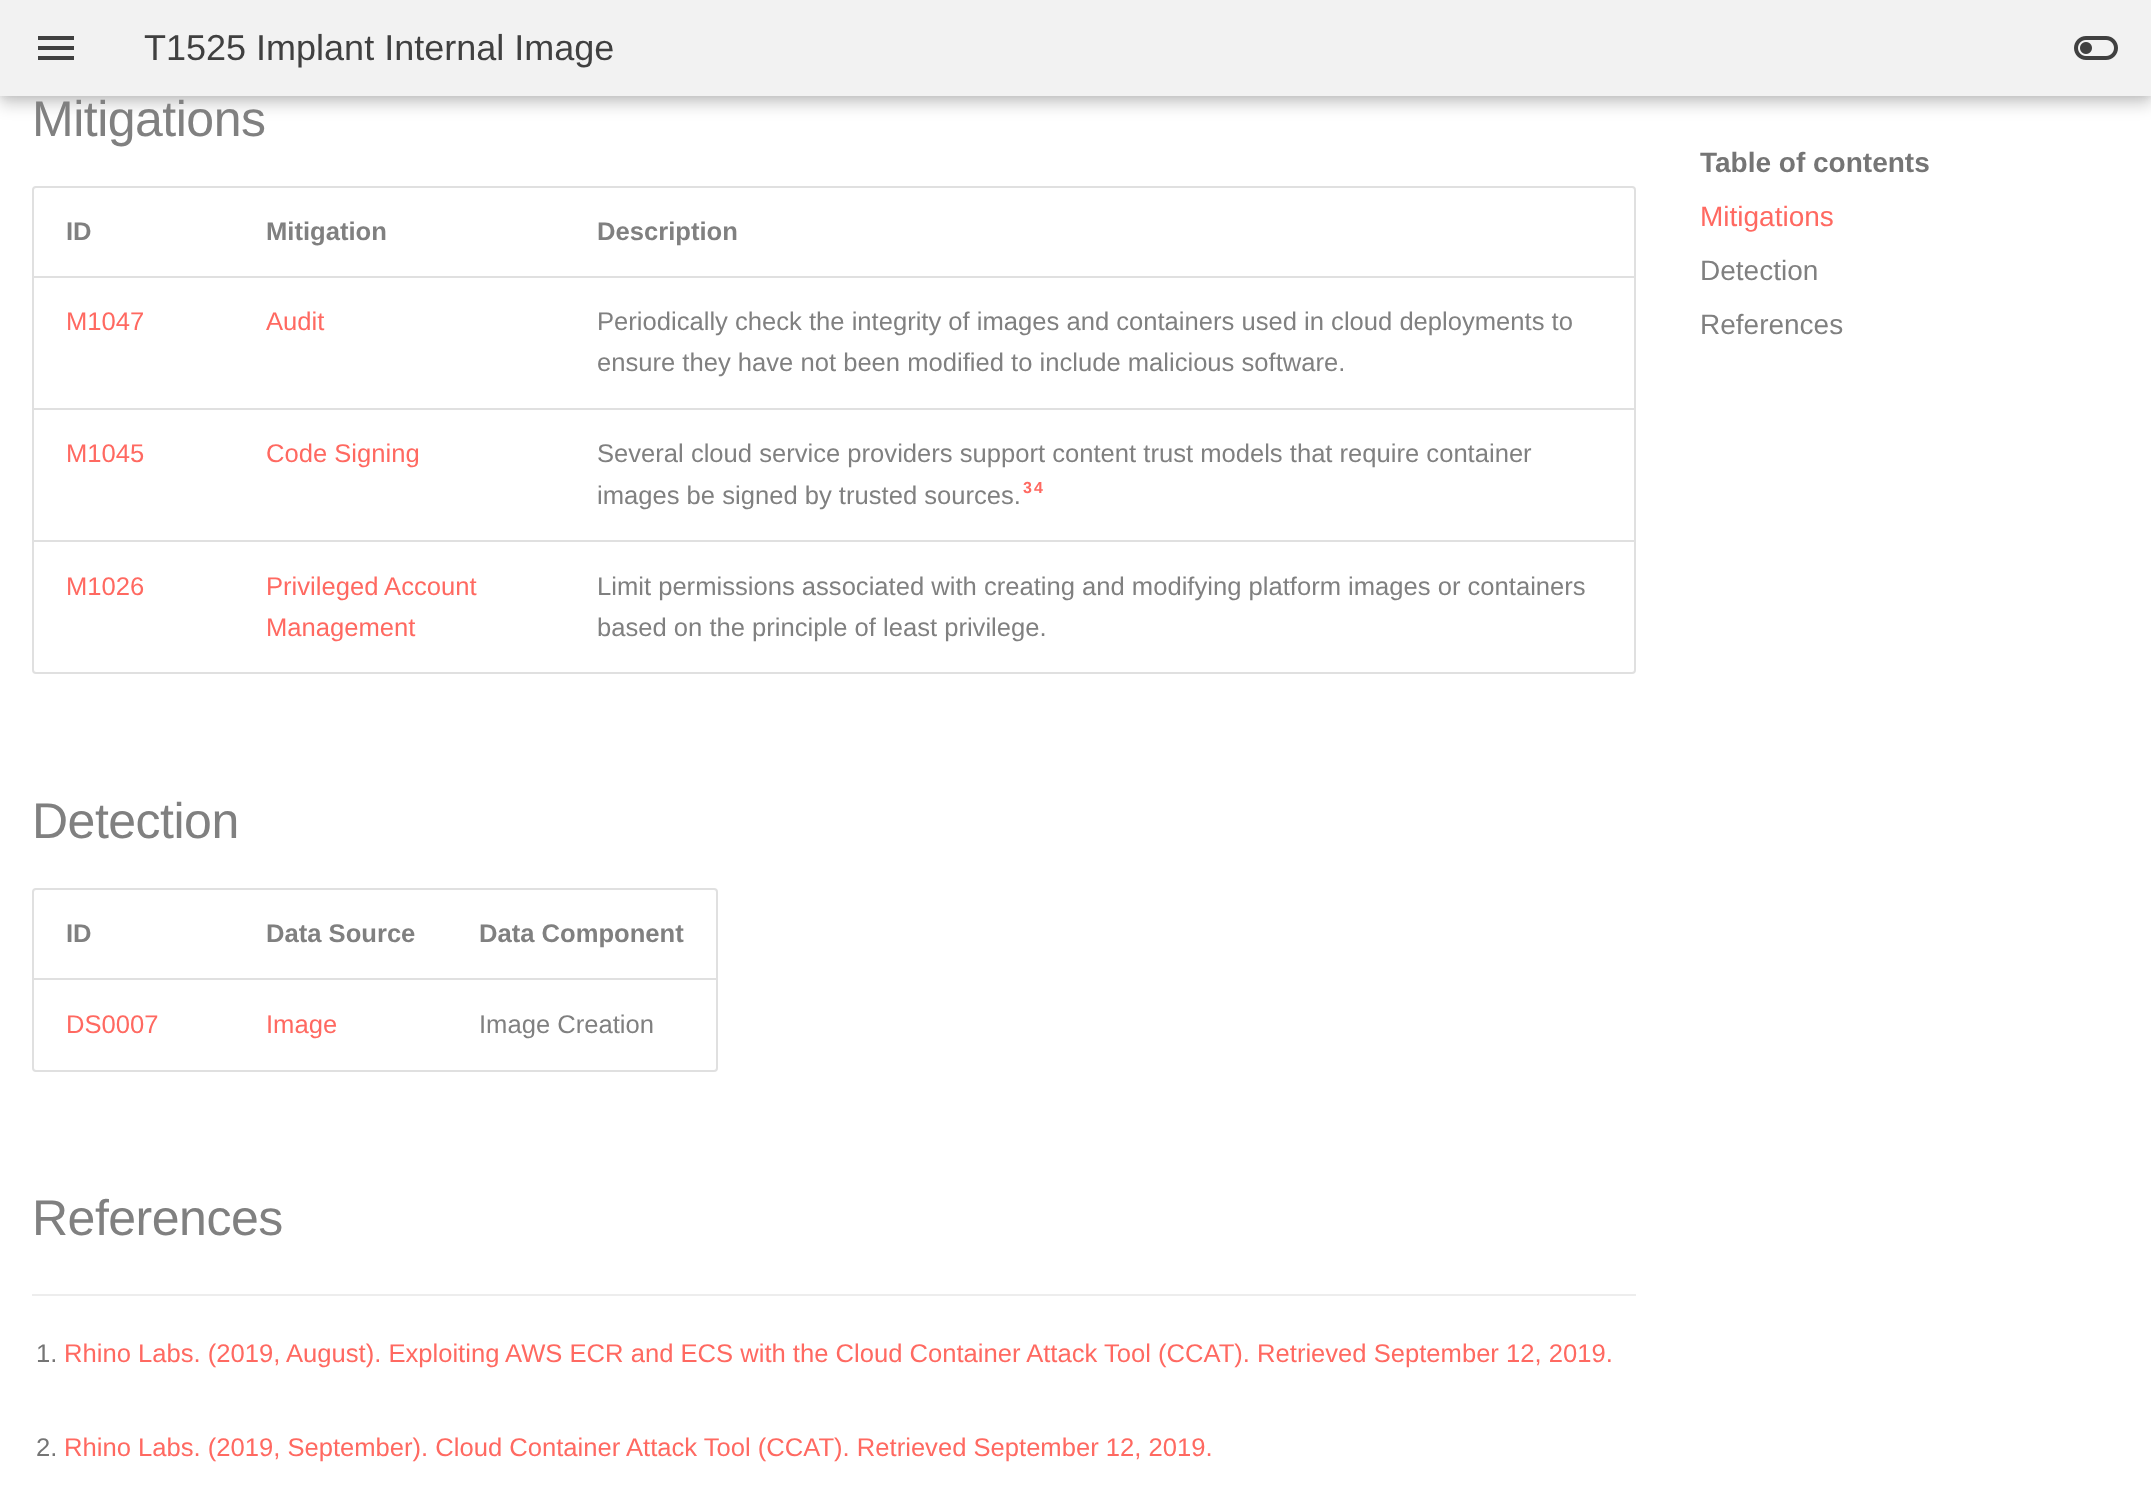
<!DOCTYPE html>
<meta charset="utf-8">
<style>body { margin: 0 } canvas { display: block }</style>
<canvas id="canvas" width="2151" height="1497"></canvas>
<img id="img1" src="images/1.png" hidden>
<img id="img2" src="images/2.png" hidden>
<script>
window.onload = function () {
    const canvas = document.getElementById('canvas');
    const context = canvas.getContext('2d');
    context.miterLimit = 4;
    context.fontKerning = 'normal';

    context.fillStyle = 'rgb(255, 255, 255)';
    context.fillRect(0, 0, 2151, 1497);
    context.fillStyle = 'rgba(0, 0, 0, 0.2)';
    context.filter = 'blur(8px)';
    context.beginPath();
    context.rect(0, 8, 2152, 96);
    context.fill();
    context.filter = 'none';
    context.fillStyle = 'rgba(0, 0, 0, 0.1)';
    context.filter = 'blur(4px)';
    context.beginPath();
    context.rect(0, 0, 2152, 96);
    context.fill();
    context.filter = 'none';
    context.fillStyle = 'rgb(242, 242, 242)';
    context.fillRect(0, 0, 2151, 96);
    context.drawImage(document.getElementById('img1'), 38, 36, 36, 24);
    context.drawImage(document.getElementById('img2'), 2074, 36, 44, 24);
    context.beginPath();
    context.roundRect(33, 187, 1602, 486, 3);
    context.strokeStyle = 'rgb(224, 224, 224)';
    context.lineWidth = 2;
    context.stroke();
    context.fillStyle = 'rgb(224, 224, 224)';
    context.fillRect(34, 276, 1600, 2);
    context.fillRect(34, 408, 1600, 2);
    context.fillRect(34, 540, 1600, 2);
    context.beginPath();
    context.roundRect(33, 889, 684, 182, 3);
    context.stroke();
    context.fillRect(34, 978, 682, 2);
    context.fillStyle = 'rgb(237, 237, 237)';
    context.fillRect(32, 1294, 1604, 2);
    context.save();
    context.beginPath();
    context.rect(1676, 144, 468, 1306);
    context.clip();
    context.beginPath();
    context.moveTo(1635, 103);
    context.lineTo(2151, 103);
    context.lineTo(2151, 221);
    context.lineTo(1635, 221);
    context.closePath();
    context.moveTo(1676, 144);
    context.lineTo(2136, 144);
    context.lineTo(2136, 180);
    context.lineTo(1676, 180);
    context.closePath();
    context.clip('evenodd');
    context.fillStyle = 'rgb(255, 255, 255)';
    context.filter = 'blur(8px)';
    context.beginPath();
    context.rect(1660, 128, 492, 68);
    context.fill();
    context.filter = 'none';
    context.restore();
    context.font = '36px Liberation Sans';
    context.fillStyle = 'rgb(64, 64, 64)';
    context.fillText('T1525 Implant Internal Image', 144, 60);
    context.letterSpacing = '-0.5px';
    context.font = '50px Liberation Sans';
    context.fillStyle = 'rgb(128, 128, 128)';
    context.fillText('Mitigations', 32, 136);
    context.letterSpacing = '0px';
    context.font = 'bold 25.6px Liberation Sans';
    context.fillText('ID', 66, 240);
    context.fillText('Mitigation', 266, 240);
    context.fillText('Description', 597, 240);
    context.font = '25.6px Liberation Sans';
    context.fillStyle = 'rgb(255, 105, 97)';
    context.fillText('M1047', 66, 330);
    context.fillText('Audit', 266, 330);
    context.fillStyle = 'rgb(128, 128, 128)';
    context.fillText('Periodically check the integrity of images and containers used in cloud deployments to', 597, 330);
    context.fillText('ensure they have not been modified to include malicious software.', 597, 371);
    context.fillStyle = 'rgb(255, 105, 97)';
    context.fillText('M1045', 66, 462);
    context.fillText('Code Signing', 266, 462);
    context.fillStyle = 'rgb(128, 128, 128)';
    context.fillText('Several cloud service providers support content trust models that require container', 597, 462);
    context.fillText('images be signed by trusted sources.', 597, 504);
    context.font = 'bold 16px Liberation Sans';
    context.fillStyle = 'rgb(255, 105, 97)';
    context.fillText('3', 1023, 493);
    context.fillText('4', 1034, 493);
    context.font = '25.6px Liberation Sans';
    context.fillText('M1026', 66, 595);
    context.fillText('Privileged Account', 266, 595);
    context.fillText('Management', 266, 636);
    context.fillStyle = 'rgb(128, 128, 128)';
    context.fillText('Limit permissions associated with creating and modifying platform images or containers', 597, 595);
    context.fillText('based on the principle of least privilege.', 597, 636);
    context.letterSpacing = '-0.5px';
    context.font = '50px Liberation Sans';
    context.fillText('Detection', 32, 838);
    context.letterSpacing = '0px';
    context.font = 'bold 25.6px Liberation Sans';
    context.fillText('ID', 66, 942);
    context.fillText('Data Source', 266, 942);
    context.fillText('Data Component', 479, 942);
    context.font = '25.6px Liberation Sans';
    context.fillStyle = 'rgb(255, 105, 97)';
    context.fillText('DS0007', 66, 1033);
    context.fillText('Image', 266, 1033);
    context.fillStyle = 'rgb(128, 128, 128)';
    context.fillText('Image Creation', 479, 1033);
    context.letterSpacing = '-0.5px';
    context.font = '50px Liberation Sans';
    context.fillText('References', 32, 1235);
    context.letterSpacing = '0px';
    context.font = '25.6px Liberation Sans';
    context.fillStyle = 'rgb(117, 117, 117)';
    context.fillText('1.', 36, 1362);
    context.fillStyle = 'rgb(255, 105, 97)';
    context.fillText('Rhino Labs. (2019, August). Exploiting AWS ECR and ECS with the Cloud Container Attack Tool (CCAT). Retrieved September 12, 2019.', 64, 1362);
    context.fillStyle = 'rgb(117, 117, 117)';
    context.fillText('2.', 36, 1456);
    context.fillStyle = 'rgb(255, 105, 97)';
    context.fillText('Rhino Labs. (2019, September). Cloud Container Attack Tool (CCAT). Retrieved September 12, 2019.', 64, 1456);
    context.font = 'bold 28px Liberation Sans';
    context.fillStyle = 'rgb(117, 117, 117)';
    context.fillText('Table of contents', 1700, 172);
    context.font = '28px Liberation Sans';
    context.fillStyle = 'rgb(255, 105, 97)';
    context.fillText('Mitigations', 1700, 226);
    context.fillStyle = 'rgb(128, 128, 128)';
    context.fillText('Detection', 1700, 280);
    context.fillText('References', 1700, 334);
};
</script>
